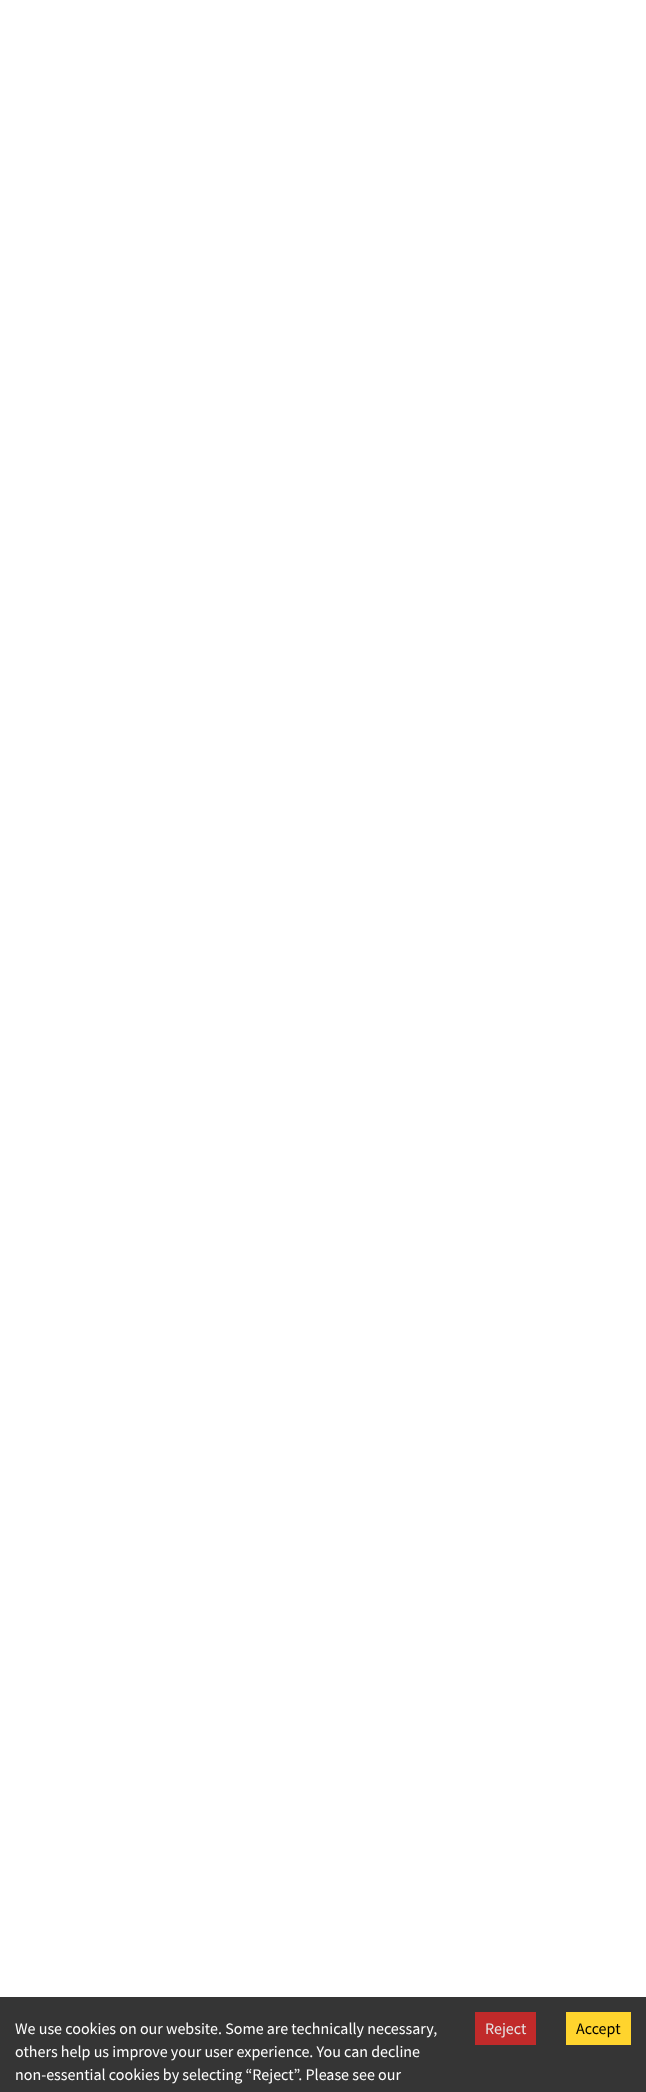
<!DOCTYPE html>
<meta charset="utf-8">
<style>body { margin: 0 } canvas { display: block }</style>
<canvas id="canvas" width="646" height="2092"></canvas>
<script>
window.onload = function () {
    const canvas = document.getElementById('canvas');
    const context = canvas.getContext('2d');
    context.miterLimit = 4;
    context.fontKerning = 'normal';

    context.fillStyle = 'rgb(255, 255, 255)';
    context.fillRect(0, 0, 646, 2092);
    context.fillStyle = 'rgb(53, 53, 53)';
    context.fillRect(0, 1997, 646, 95);
    context.fillStyle = 'rgb(193, 42, 42)';
    context.fillRect(475, 2012, 61, 33);
    context.fillStyle = 'rgb(255, 212, 45)';
    context.fillRect(566, 2012, 65, 33);
    context.font = '16px Source Sans Pro';
    context.fillStyle = 'rgb(255, 255, 255)';
    context.fillText('We use cookies on our website. Some are technically necessary,', 15, 2034);
    context.fillText('others help us improve your user experience. You can decline', 15, 2057);
    context.fillText('non-essential cookies by selecting “Reject”. Please see our', 15, 2080);
    context.fillStyle = 'rgb(229, 229, 229)';
    context.fillText('Reject', 485, 2034);
    context.fillStyle = 'rgb(0, 0, 0)';
    context.fillText('Accept', 576, 2034);
};
</script>
